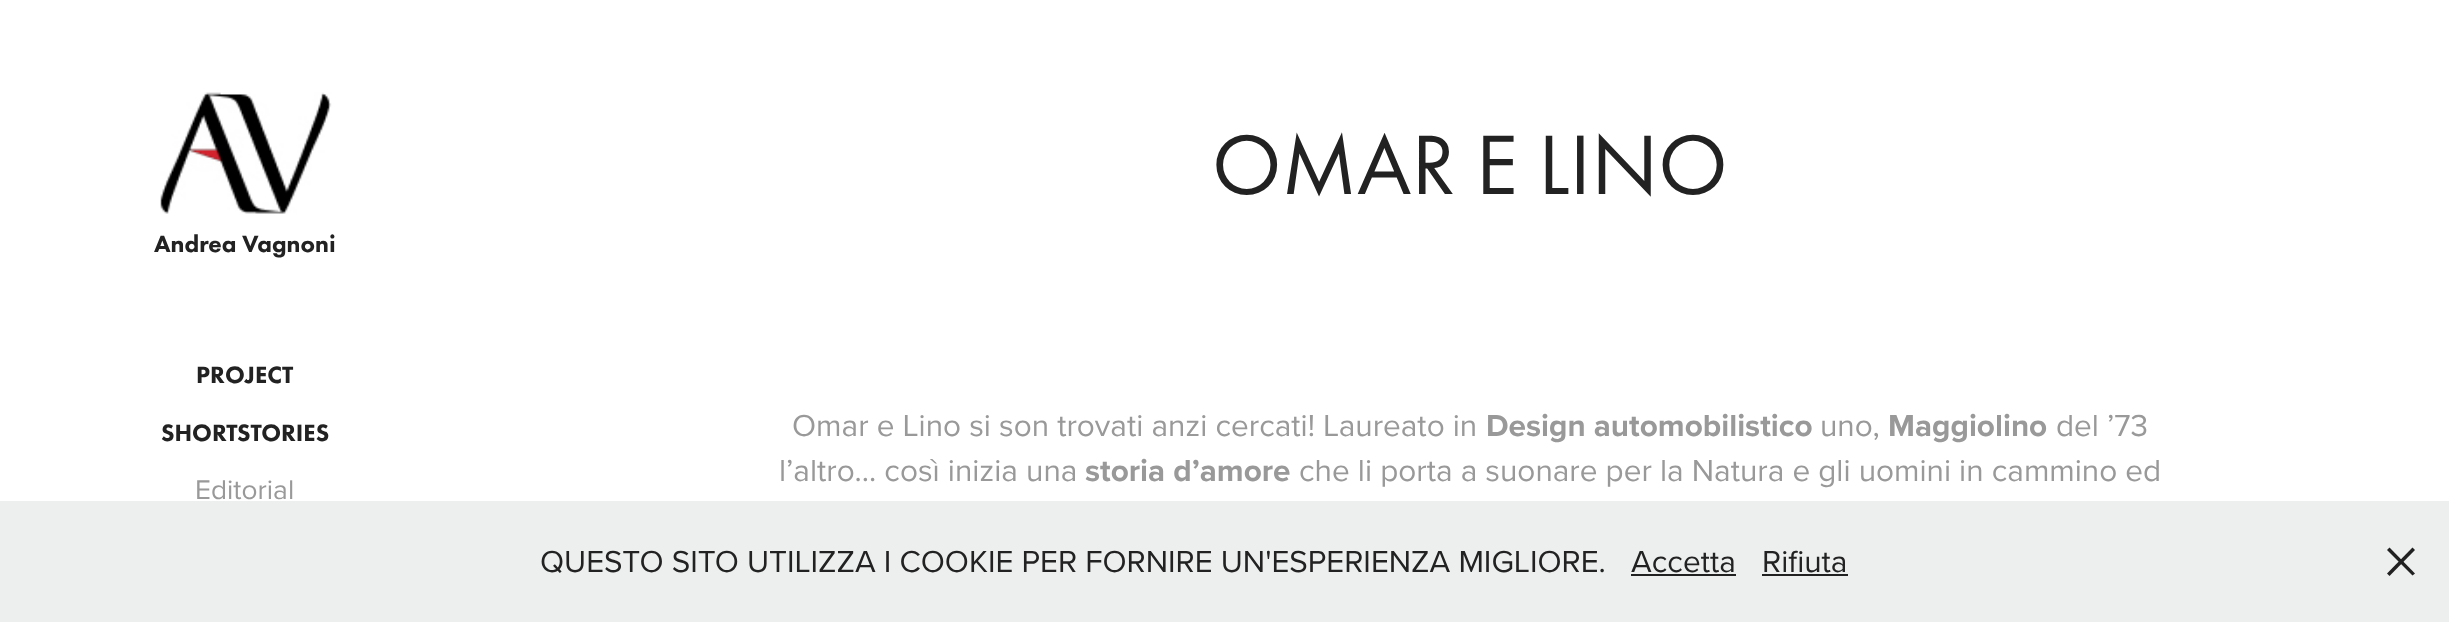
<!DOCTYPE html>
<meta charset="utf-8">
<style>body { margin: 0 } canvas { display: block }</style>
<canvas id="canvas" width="2449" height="622"></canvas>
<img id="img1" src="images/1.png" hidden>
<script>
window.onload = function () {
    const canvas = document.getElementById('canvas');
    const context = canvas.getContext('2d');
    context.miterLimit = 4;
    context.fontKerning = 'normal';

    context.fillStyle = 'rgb(255, 255, 255)';
    context.fillRect(0, 0, 2449, 622);
    context.drawImage(document.getElementById('img1'), 160, 92, 172, 122);
    context.fillStyle = 'rgb(237, 238, 238)';
    context.fillRect(0, 501, 2449, 121);
    context.fillStyle = 'rgb(33, 33, 33)';
    context.fillRect(1631, 574, 105, 2);
    context.fillRect(1762, 574, 86, 2);
    context.beginPath();
    context.moveTo(2387, 550);
    context.lineTo(2389.5, 547.5);
    context.lineTo(2415, 573.5);
    context.lineTo(2412.5, 575.5);
    context.closePath();
    context.fill();
    context.beginPath();
    context.moveTo(2389.5, 576);
    context.lineTo(2387, 573.5);
    context.lineTo(2412.5, 547.5);
    context.lineTo(2415, 550);
    context.closePath();
    context.fill();
    context.font = '900 24.5px Futura PT';
    context.fillStyle = 'rgb(34, 34, 34)';
    context.fillText('Andrea Vagnoni', 154, 252);
    context.fillText('PROJECT', 196, 383);
    context.fillText('SHORTSTORIES', 161, 441);
    context.font = '28px Proxima Nova';
    context.fillStyle = 'rgb(153, 153, 153)';
    context.fillText('Editorial', 195, 499);
    context.font = '87.5px Futura PT';
    context.fillStyle = 'rgb(34, 34, 34)';
    context.fillText('OMAR E LINO', 1212, 194);
    context.font = '31.5px Proxima Nova';
    context.fillStyle = 'rgb(153, 153, 153)';
    context.fillText('Omar e Lino si son trovati anzi cercati! Laureato in', 792, 436);
    context.font = 'bold 31.5px Proxima Nova';
    context.fillText('Design automobilistico', 1486, 436);
    context.font = '31.5px Proxima Nova';
    context.fillText('uno,', 1820, 436);
    context.font = 'bold 31.5px Proxima Nova';
    context.fillText('Maggiolino', 1888, 436);
    context.font = '31.5px Proxima Nova';
    context.fillText('del ’73', 2056, 436);
    context.fillText('l’altro… così inizia una', 779, 481);
    context.font = 'bold 31.5px Proxima Nova';
    context.fillText('storia d’amore', 1085, 481);
    context.font = '31.5px Proxima Nova';
    context.fillText('che li porta a suonare per la Natura e gli uomini in cammino ed', 1299, 481);
    context.fillStyle = 'rgb(34, 34, 34)';
    context.fillText('QUESTO SITO UTILIZZA I COOKIE PER FORNIRE UN\'ESPERIENZA MIGLIORE.', 540, 572);
    context.fillText('Accetta', 1631, 572);
    context.fillText('Rifiuta', 1762, 572);
};
</script>
